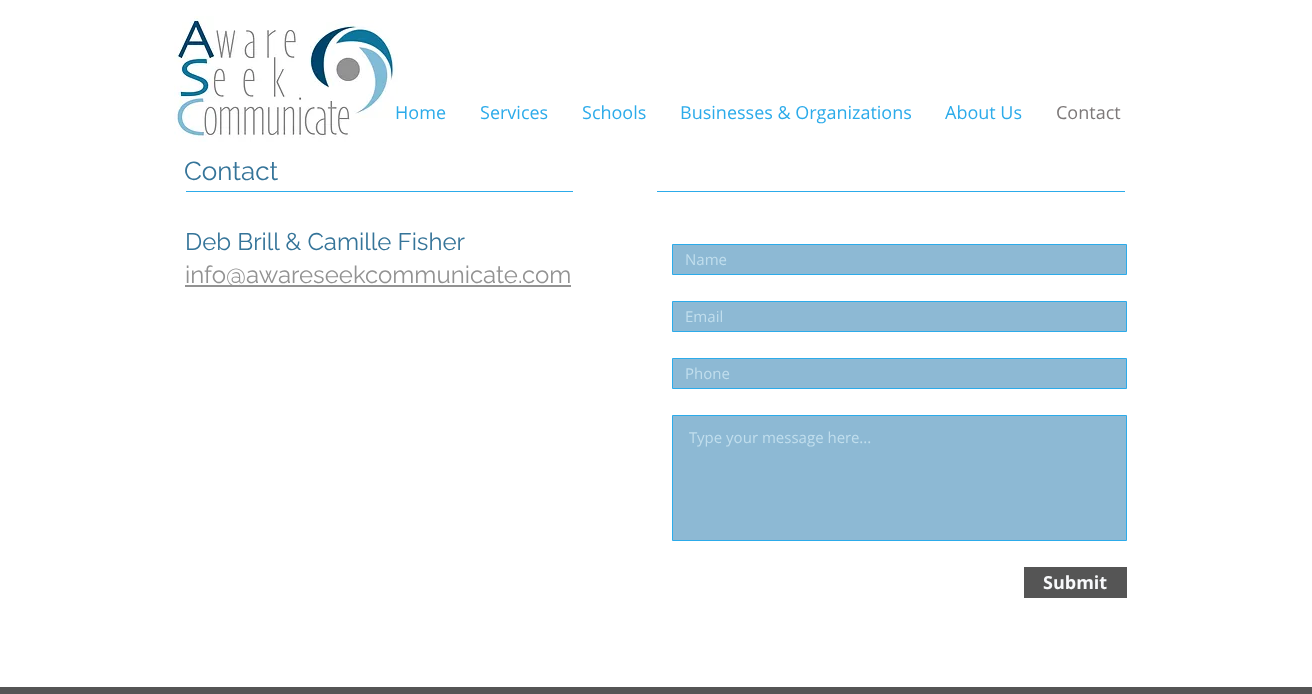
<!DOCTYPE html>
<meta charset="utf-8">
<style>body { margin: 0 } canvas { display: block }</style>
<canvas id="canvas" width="1312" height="694"></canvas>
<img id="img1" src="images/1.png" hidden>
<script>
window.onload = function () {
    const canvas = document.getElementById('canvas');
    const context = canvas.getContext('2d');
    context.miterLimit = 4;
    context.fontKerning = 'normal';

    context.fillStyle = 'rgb(255, 255, 255)';
    context.fillRect(0, 0, 1312, 694);
    context.drawImage(document.getElementById('img1'), 174, 16, 224, 126);
    context.fillStyle = 'rgb(44, 171, 234)';
    context.fillRect(186, 191, 387, 1);
    context.fillRect(657, 191, 468, 1);
    context.fillStyle = 'rgb(146, 146, 146)';
    context.fillRect(185, 285, 386, 2);
    context.fillStyle = 'rgb(141, 185, 212)';
    context.beginPath();
    context.rect(672.5, 244.5, 454, 30);
    context.fill();
    context.strokeStyle = 'rgb(44, 171, 234)';
    context.stroke();
    context.beginPath();
    context.rect(672.5, 301.5, 454, 30);
    context.fill();
    context.stroke();
    context.beginPath();
    context.rect(672.5, 358.5, 454, 30);
    context.fill();
    context.stroke();
    context.beginPath();
    context.rect(672.5, 415.5, 454, 125);
    context.fill();
    context.stroke();
    context.fillStyle = 'rgb(85, 85, 85)';
    context.fillRect(1024, 567, 103, 31);
    context.fillRect(0, 687, 1312, 7);
    context.font = '18px Open Sans';
    context.fillStyle = 'rgb(44, 171, 234)';
    context.fillText('Home', 395, 119);
    context.fillText('Services', 480, 119);
    context.fillText('Schools', 582, 119);
    context.fillText('Businesses & Organizations', 680, 119);
    context.fillText('About Us', 945, 119);
    context.fillStyle = 'rgb(125, 121, 121)';
    context.fillText('Contact', 1056, 119);
    context.font = '26px Raleway';
    context.fillStyle = 'rgb(53, 116, 153)';
    context.fillText('Contact', 184, 180);
    context.font = '24px Raleway';
    context.fillText('Deb Brill & Camille Fisher', 185, 250);
    context.fillStyle = 'rgb(146, 146, 146)';
    context.fillText('info@awareseekcommunicate.com', 185, 283);
    context.font = '15px Open Sans';
    context.fillStyle = 'rgb(193, 222, 237)';
    context.fillText('Name', 685, 265);
    context.fillText('Email', 685, 322);
    context.fillText('Phone', 685, 379);
    context.fillText('Type your message here...', 689, 443);
    context.font = 'bold 18px Open Sans';
    context.fillStyle = 'rgb(248, 249, 251)';
    context.fillText('Submit', 1043, 589);
};
</script>
